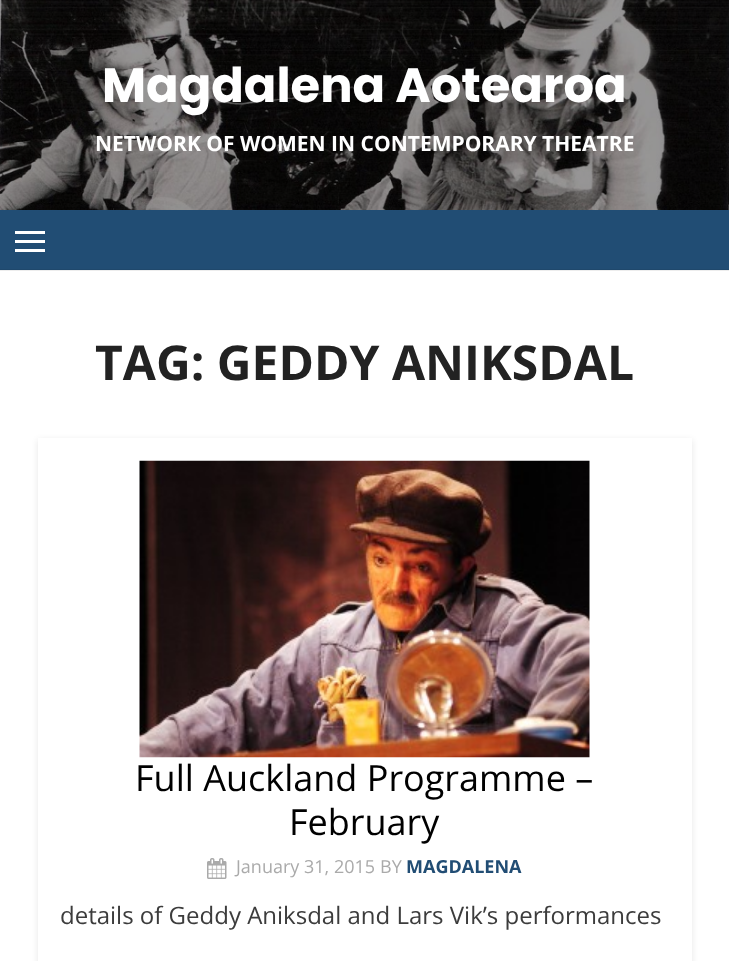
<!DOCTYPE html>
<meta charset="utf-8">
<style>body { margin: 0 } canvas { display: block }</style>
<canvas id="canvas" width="729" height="961"></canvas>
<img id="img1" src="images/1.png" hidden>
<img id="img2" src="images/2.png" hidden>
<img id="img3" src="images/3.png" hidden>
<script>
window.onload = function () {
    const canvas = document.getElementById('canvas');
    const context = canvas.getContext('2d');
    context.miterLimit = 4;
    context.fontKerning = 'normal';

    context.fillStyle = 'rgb(255, 255, 255)';
    context.fillRect(0, 0, 729, 961);
    context.fillStyle = 'rgb(237, 237, 237)';
    context.fillRect(0, 270, 729, 1);
    context.drawImage(document.getElementById('img1'), 0, 0, 729, 210);
    context.fillStyle = 'rgb(33, 77, 116)';
    context.fillRect(0, 210, 729, 59);
    context.fillStyle = 'rgb(31, 72, 108)';
    context.fillRect(0, 269, 729, 1);
    context.fillStyle = 'rgb(255, 255, 255)';
    context.fillRect(15, 240, 30, 3);
    context.fillRect(15, 231, 30, 3);
    context.fillRect(15, 249, 30, 3);
    context.fillStyle = 'rgba(0, 0, 0, 0.1)';
    context.filter = 'blur(3px)';
    context.beginPath();
    context.rect(38, 440, 654, 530);
    context.fill();
    context.filter = 'none';
    context.fillStyle = 'rgb(255, 255, 255)';
    context.fillRect(38, 438, 654, 523);
    context.drawImage(document.getElementById('img2'), 139, 460, 451, 298);
    context.drawImage(document.getElementById('img3'), 207, 858, 20, 21);
    context.font = 'bold 48px Poppins';
    context.fillText('Magdalena Aotearoa', 102, 102);
    context.font = 'bold 21px Open Sans';
    context.fillText('NETWORK OF WOMEN IN CONTEMPORARY THEATRE', 95, 151);
    context.font = 'bold 48px Open Sans';
    context.fillStyle = 'rgb(34, 34, 34)';
    context.fillText('TAG: GEDDY ANIKSDAL', 95, 380);
    context.font = '36px Open Sans';
    context.fillStyle = 'rgb(0, 0, 0)';
    context.fillText('Full Auckland Programme –', 135, 791);
    context.fillText('February', 289, 835);
    context.font = '18px Open Sans';
    context.fillStyle = 'rgb(170, 170, 170)';
    context.fillText('January 31, 2015', 236, 873);
    context.fillText('BY', 380, 873);
    context.font = 'bold 18px Open Sans';
    context.fillStyle = 'rgb(33, 77, 116)';
    context.fillText('MAGDALENA', 406, 873);
    context.font = '24px Open Sans';
    context.fillStyle = 'rgb(60, 60, 60)';
    context.fillText('details of Geddy Aniksdal and Lars Vik’s performances', 60, 924);
};
</script>
